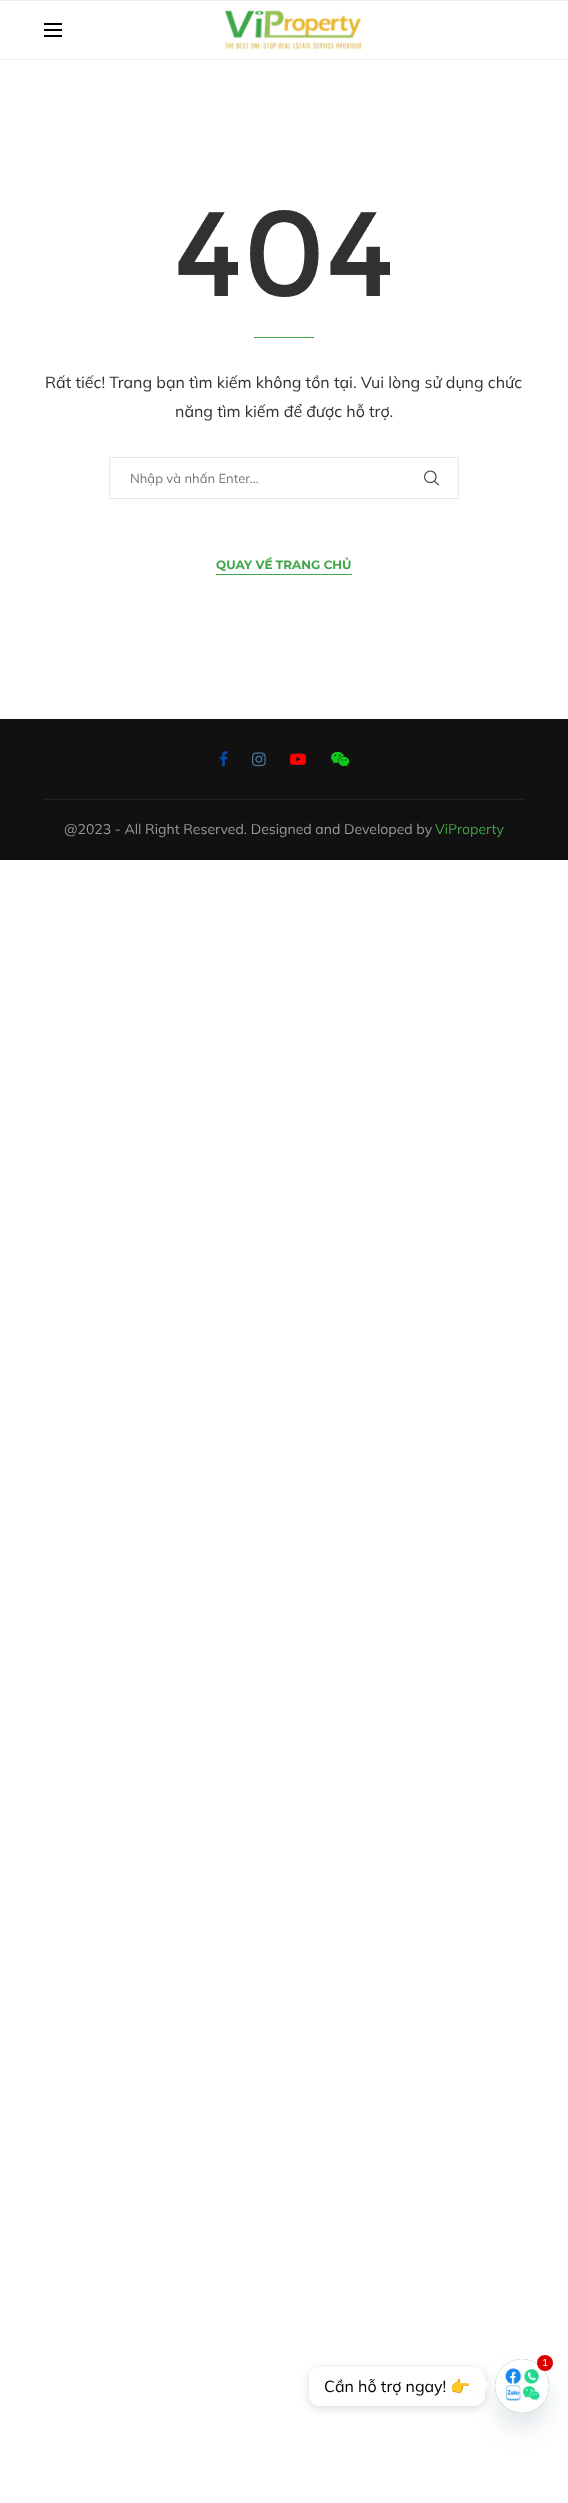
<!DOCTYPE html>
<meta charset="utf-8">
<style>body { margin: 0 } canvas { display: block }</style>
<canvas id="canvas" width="568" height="2503"></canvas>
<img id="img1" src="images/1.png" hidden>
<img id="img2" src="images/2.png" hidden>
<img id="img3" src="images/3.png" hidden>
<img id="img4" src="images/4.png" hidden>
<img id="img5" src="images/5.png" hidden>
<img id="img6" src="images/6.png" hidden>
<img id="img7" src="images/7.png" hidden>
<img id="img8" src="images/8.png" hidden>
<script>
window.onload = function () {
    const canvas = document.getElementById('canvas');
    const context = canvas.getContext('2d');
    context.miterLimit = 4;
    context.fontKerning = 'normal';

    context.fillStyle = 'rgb(255, 255, 255)';
    context.fillRect(0, 0, 568, 2503);
    context.fillStyle = 'rgb(236, 236, 236)';
    context.fillRect(0, 0, 568, 1);
    context.fillRect(0, 59, 568, 1);
    context.fillStyle = 'rgb(0, 0, 0)';
    context.fillRect(44, 23, 18, 2);
    context.fillRect(44, 29, 18, 2);
    context.fillRect(44, 35, 18, 2);
    context.drawImage(document.getElementById('img1'), 224, 10, 138, 40);
    context.drawImage(document.getElementById('img2'), 178, 210, 212, 87);
    context.fillStyle = 'rgb(63, 165, 72)';
    context.fillRect(254, 337, 60, 1);
    context.strokeStyle = 'rgb(233, 233, 233)';
    context.strokeRect(109.5, 457.5, 349, 41);
    context.drawImage(document.getElementById('img3'), 424, 470, 15, 16);
    context.fillRect(216, 574, 136, 1);
    context.fillStyle = 'rgb(17, 17, 17)';
    context.fillRect(0, 719, 568, 141);
    context.fillStyle = 'rgb(33, 33, 33)';
    context.fillRect(44, 799, 480, 1);
    context.drawImage(document.getElementById('img4'), 219, 751, 9, 16);
    context.drawImage(document.getElementById('img5'), 252, 752, 14, 15);
    context.drawImage(document.getElementById('img6'), 290, 753, 16, 12);
    context.drawImage(document.getElementById('img7'), 331, 751, 19, 16);
    context.fillStyle = 'rgba(0, 0, 0, 0.15)';
    context.filter = 'blur(4px)';
    context.beginPath();
    context.roundRect(309, 2369, 176, 39, 10);
    context.fill();
    context.filter = 'none';
    context.fillStyle = 'rgb(255, 255, 255)';
    context.beginPath();
    context.roundRect(309, 2367, 176, 39, 10);
    context.fill();
    context.beginPath();
    context.moveTo(485, 2390.5);
    context.lineTo(485, 2380.5);
    context.lineTo(490, 2385.5);
    context.closePath();
    context.fill();
    context.fillStyle = 'rgba(73, 104, 126, 0.16)';
    context.filter = 'blur(12px)';
    context.beginPath();
    context.roundRect(495, 2375, 54, 54, 27);
    context.fill();
    context.filter = 'none';
    context.fillStyle = 'rgb(63, 165, 72)';
    context.beginPath();
    context.arc(522, 2386, 27, 0, 2 * Math.PI);
    context.fill();
    context.drawImage(document.getElementById('img8'), 495, 2359, 54, 54);
    context.fillStyle = 'rgb(221, 0, 0)';
    context.beginPath();
    context.arc(545, 2363, 8, 0, 2 * Math.PI);
    context.fill();
    context.font = '16px Mulish';
    context.fillStyle = 'rgb(49, 49, 49)';
    context.fillText('Rất tiếc! Trang bạn tìm kiếm không tồn tại. Vui lòng sử dụng chức', 45, 388);
    context.fillText('năng tìm kiếm để được hỗ trợ.', 175, 417);
    context.font = '13px Mulish';
    context.fillStyle = 'rgb(117, 117, 117)';
    context.fillText('Nhập và nhấn Enter...', 130, 483);
    context.font = 'bold 12px Montserrat';
    context.fillStyle = 'rgb(63, 165, 72)';
    context.fillText('QUAY VỀ TRANG CHỦ', 216, 569);
    context.font = '14px Mulish';
    context.fillStyle = 'rgb(153, 153, 153)';
    context.fillText('@2023 - All Right Reserved. Designed and Developed by', 64, 834);
    context.fillStyle = 'rgb(63, 165, 72)';
    context.fillText('ViProperty', 435, 834);
    context.font = '10px Mulish';
    context.fillStyle = 'rgb(255, 255, 255)';
    context.fillText('1', 542, 2366);
    context.font = '16px Mulish';
    context.fillStyle = 'rgb(0, 0, 0)';
    context.fillText('Cần hỗ trợ ngay!', 324, 2392);
    context.font = '16px Noto Color Emoji';
    context.fillText('👉', 450, 2392);
};
</script>
